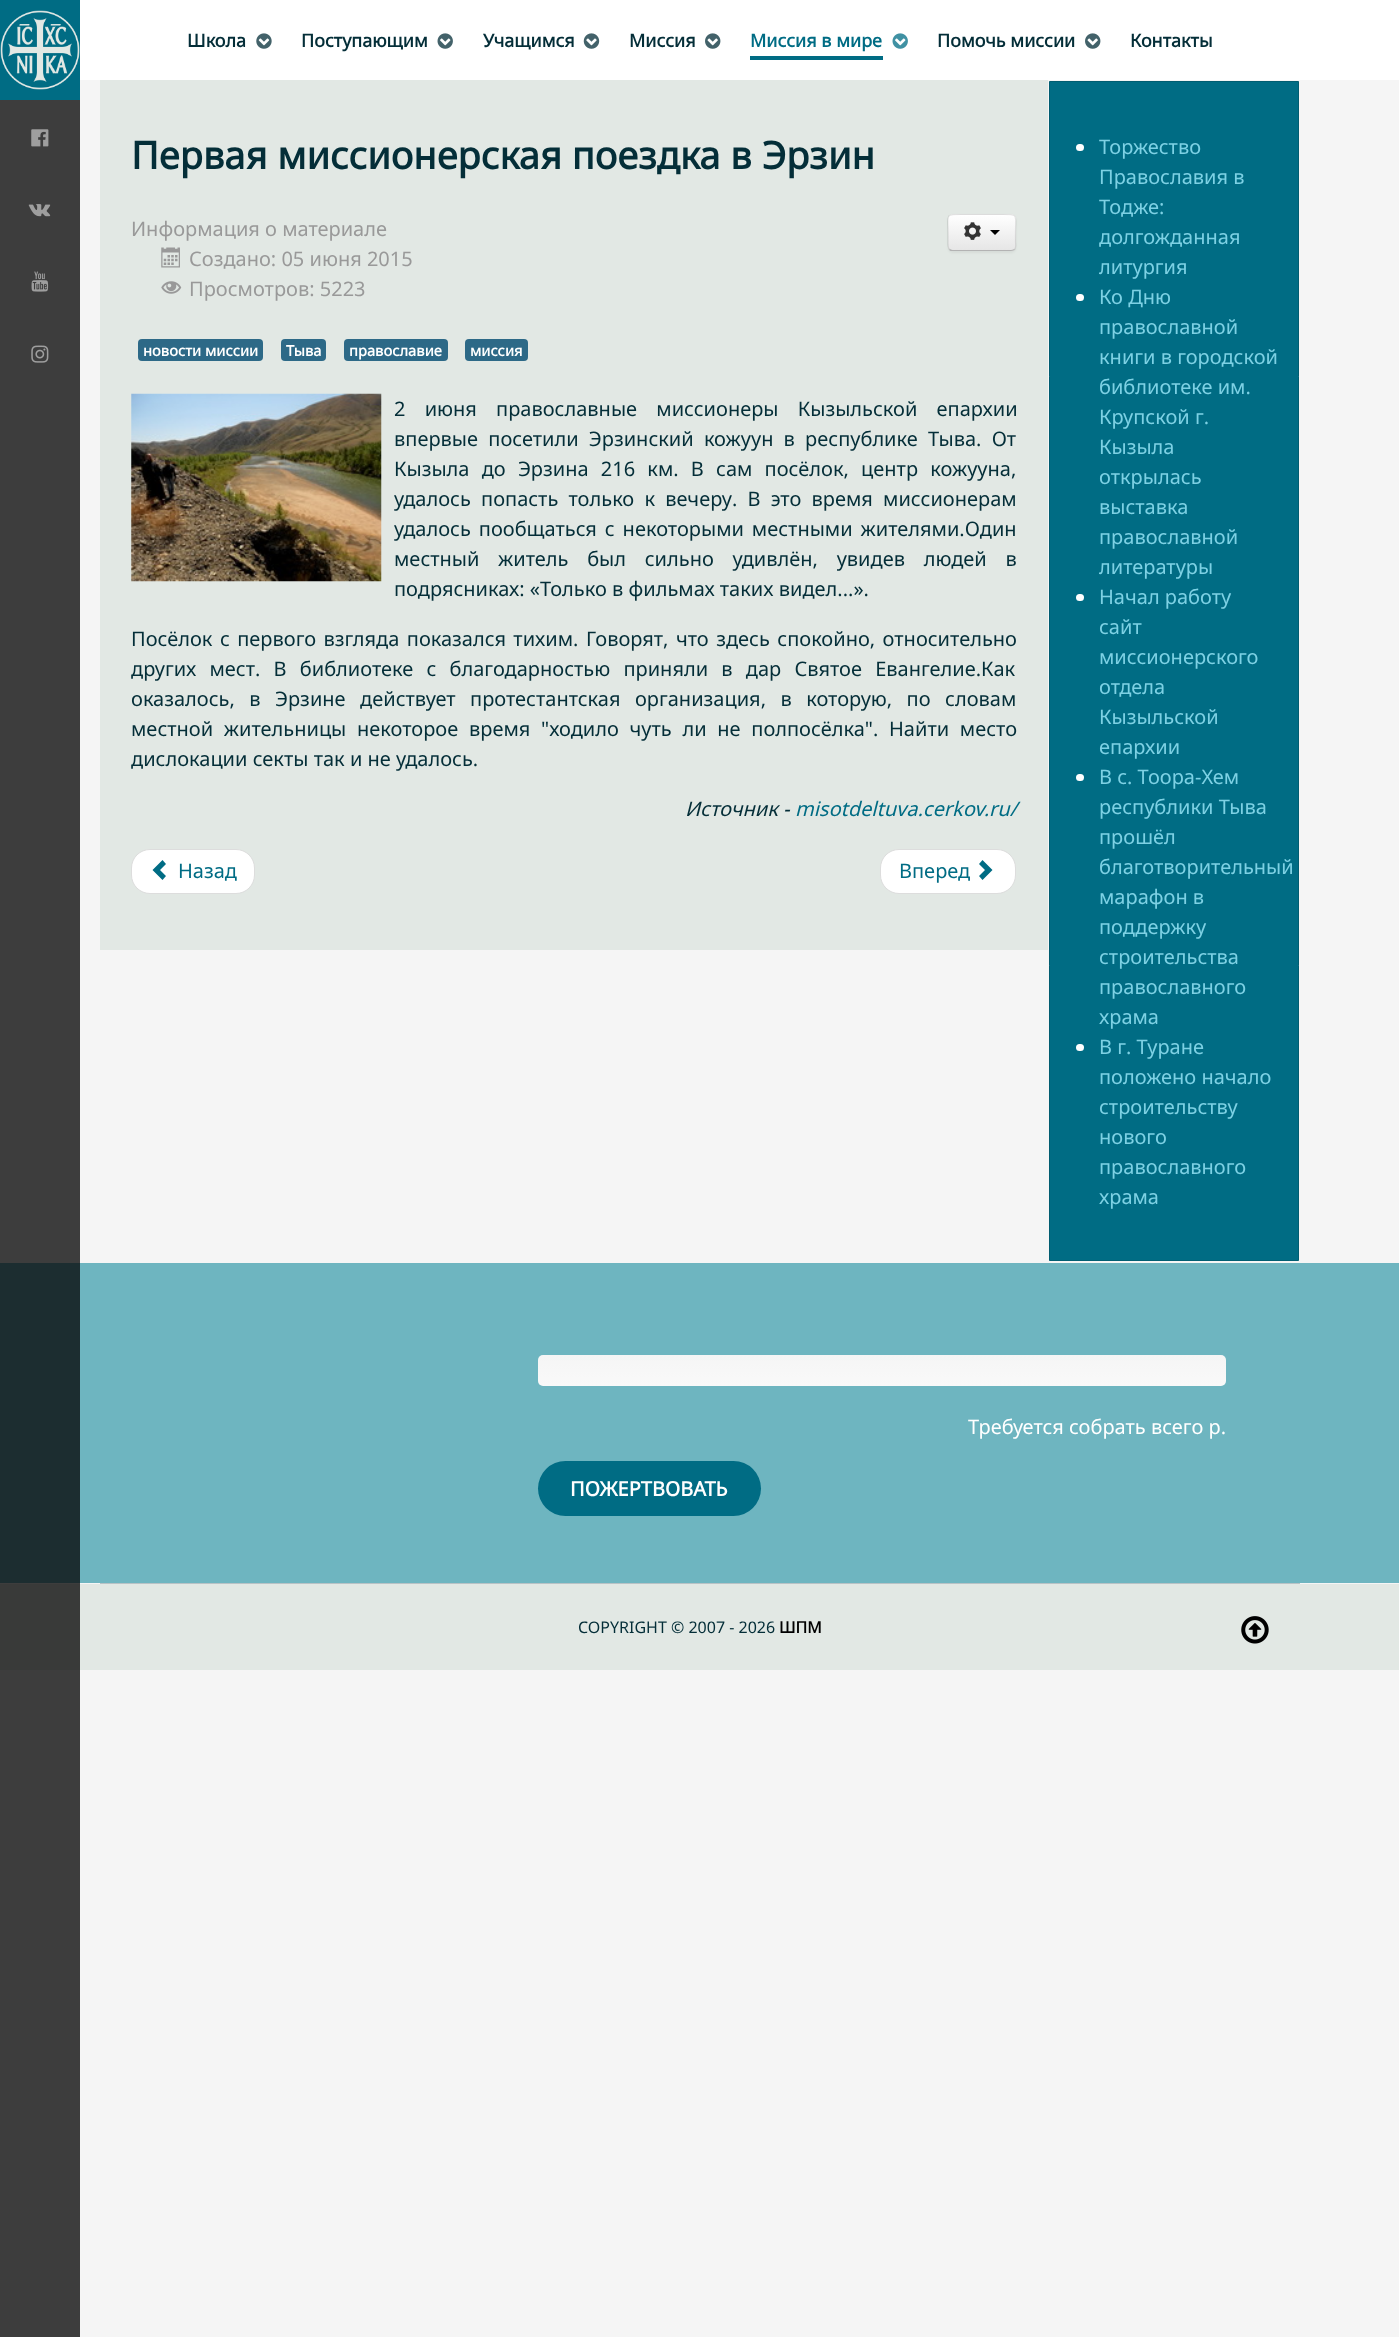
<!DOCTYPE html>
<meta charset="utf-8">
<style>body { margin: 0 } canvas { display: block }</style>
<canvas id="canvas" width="1399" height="2337"></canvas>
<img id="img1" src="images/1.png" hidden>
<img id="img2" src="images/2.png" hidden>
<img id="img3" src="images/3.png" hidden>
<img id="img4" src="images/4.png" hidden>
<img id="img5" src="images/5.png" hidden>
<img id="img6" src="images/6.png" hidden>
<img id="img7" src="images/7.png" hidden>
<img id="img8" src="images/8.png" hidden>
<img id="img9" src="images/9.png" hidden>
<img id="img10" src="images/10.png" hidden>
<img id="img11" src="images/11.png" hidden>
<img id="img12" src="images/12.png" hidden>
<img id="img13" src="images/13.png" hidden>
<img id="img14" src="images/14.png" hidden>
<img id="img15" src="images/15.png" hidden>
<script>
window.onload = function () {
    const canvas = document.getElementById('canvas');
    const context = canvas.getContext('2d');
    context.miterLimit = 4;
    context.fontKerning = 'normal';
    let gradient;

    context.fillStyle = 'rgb(245, 245, 245)';
    context.fillRect(0, 0, 1399, 2337);
    context.fillStyle = 'rgb(61, 61, 61)';
    context.fillRect(0, 100, 80, 2237);
    context.fillStyle = 'rgb(0, 108, 132)';
    context.fillRect(0, 0, 80, 100);
    context.drawImage(document.getElementById('img1'), 0, 10, 80, 80);
    context.drawImage(document.getElementById('img2'), 31, 129, 18, 18);
    context.drawImage(document.getElementById('img3'), 28, 204, 23, 13);
    context.drawImage(document.getElementById('img4'), 31, 271, 18, 21);
    context.drawImage(document.getElementById('img5'), 31, 345, 18, 18);
    context.fillStyle = 'rgb(255, 255, 255)';
    context.fillRect(80, 0, 1319, 80);
    context.drawImage(document.getElementById('img6'), 256, 33, 16, 16);
    context.drawImage(document.getElementById('img7'), 437, 33, 16, 16);
    context.drawImage(document.getElementById('img8'), 583, 33, 17, 16);
    context.drawImage(document.getElementById('img9'), 705, 33, 16, 16);
    context.fillStyle = 'rgb(0, 108, 132)';
    context.fillRect(750, 56, 133, 4);
    context.drawImage(document.getElementById('img10'), 892, 33, 16, 16);
    context.drawImage(document.getElementById('img9'), 1085, 33, 16, 16);
    context.fillStyle = 'rgb(226, 232, 228)';
    context.fillRect(100, 80, 948, 870);
    context.drawImage(document.getElementById('img11'), 161, 247, 19, 21);
    context.drawImage(document.getElementById('img12'), 161, 281, 21, 13);
    context.fillStyle = 'rgba(0, 0, 0, 0.05)';
    context.filter = 'blur(1px)';
    context.beginPath();
    context.roundRect(948, 215, 68, 38, 5);
    context.fill();
    context.filter = 'none';
    context.fillStyle = 'rgb(245, 245, 245)';
    context.beginPath();
    context.roundRect(948, 214, 68, 37, 5);
    context.fill();
    context.save();
    context.beginPath();
    context.roundRect(948, 214, 68, 37, 5);
    context.clip();
    gradient = context.createLinearGradient(982, 215, 982, 250);
    gradient.addColorStop(0, 'rgb(255, 255, 255)');
    gradient.addColorStop(1, 'rgb(230, 230, 230)');
    context.fillStyle = gradient;
    context.fillRect(948, 215, 68, 35);
    context.restore();
    context.fillStyle = 'rgb(255, 255, 255)';
    context.beginPath();
    context.moveTo(952, 216);
    context.lineTo(1011, 216);
    context.bezierCurveTo(1013, 216, 1015, 218, 1015, 220);
    context.bezierCurveTo(1015, 213, 1006, 215, 1001, 215);
    context.lineTo(963, 215);
    context.bezierCurveTo(958, 215, 949, 213, 949, 220);
    context.bezierCurveTo(949, 218, 950, 216, 952, 216);
    context.closePath();
    context.fill();
    context.beginPath();
    context.moveTo(1014.5, 249.5);
    context.bezierCurveTo(1013.5, 250, 1012.5, 250.5, 1011, 250.5);
    context.lineTo(952.5, 250.5);
    context.bezierCurveTo(951.5, 250.5, 950, 250, 949.5, 249.5);
    context.strokeStyle = 'rgb(179, 179, 179)';
    context.lineWidth = 1.2;
    context.stroke();
    context.beginPath();
    context.moveTo(949.5, 249.5);
    context.bezierCurveTo(947.5, 247.5, 948, 244, 948, 241.5);
    context.lineTo(948, 232.5);
    context.bezierCurveTo(948, 214, 944.5, 214.5, 962.5, 214.5);
    context.lineTo(1001.5, 214.5);
    context.bezierCurveTo(1019, 214.5, 1015.5, 214, 1015.5, 232.5);
    context.lineTo(1015.5, 241.5);
    context.bezierCurveTo(1015.5, 244, 1016.5, 247.5, 1014.5, 249.5);
    context.strokeStyle = 'rgba(0, 0, 0, 0.1)';
    context.stroke();
    context.drawImage(document.getElementById('img13'), 964, 222, 17, 18);
    context.fillStyle = 'rgb(0, 0, 0)';
    context.beginPath();
    context.moveTo(990, 230);
    context.lineTo(1000, 230);
    context.lineTo(995, 235);
    context.closePath();
    context.fill();
    context.fillStyle = 'rgb(45, 105, 135)';
    context.beginPath();
    context.roundRect(138, 339, 125, 22, 4);
    context.fill();
    context.beginPath();
    context.roundRect(281, 339, 45, 22, 4);
    context.fill();
    context.beginPath();
    context.roundRect(344, 339, 104, 22, 4);
    context.fill();
    context.beginPath();
    context.roundRect(465, 339, 63, 22, 4);
    context.fill();
    context.drawImage(document.getElementById('img14'), 131, 393, 251, 189);
    context.fillStyle = 'rgb(255, 255, 255)';
    context.beginPath();
    context.roundRect(131.5, 849.5, 123, 44, 18.5);
    context.fill();
    context.strokeStyle = 'rgb(221, 221, 221)';
    context.lineWidth = 1;
    context.stroke();
    context.fillStyle = 'rgb(0, 108, 132)';
    context.beginPath();
    context.moveTo(162.5, 880);
    context.lineTo(152.5, 870);
    context.lineTo(162.5, 860);
    context.lineTo(166, 864);
    context.lineTo(160, 870);
    context.lineTo(166, 876);
    context.closePath();
    context.fill();
    context.fillStyle = 'rgb(255, 255, 255)';
    context.beginPath();
    context.roundRect(880.5, 849.5, 135, 44, 18.5);
    context.fill();
    context.stroke();
    context.fillStyle = 'rgb(0, 108, 132)';
    context.beginPath();
    context.moveTo(982.5, 860);
    context.lineTo(992.5, 870);
    context.lineTo(982.5, 880);
    context.lineTo(979, 876);
    context.lineTo(985, 870);
    context.lineTo(979, 864);
    context.closePath();
    context.fill();
    context.beginPath();
    context.rect(1049.5, 81.5, 249, 1179);
    context.fill();
    context.strokeStyle = 'rgb(1, 93, 113)';
    context.stroke();
    context.fillStyle = 'rgb(255, 255, 255)';
    context.beginPath();
    context.roundRect(1076, 144, 8, 7, 3.5);
    context.fill();
    context.beginPath();
    context.roundRect(1076, 294, 8, 7, 3.5);
    context.fill();
    context.beginPath();
    context.roundRect(1076, 594, 8, 7, 3.5);
    context.fill();
    context.beginPath();
    context.roundRect(1076, 774, 8, 7, 3.5);
    context.fill();
    context.beginPath();
    context.roundRect(1076, 1044, 8, 7, 3.5);
    context.fill();
    context.fillStyle = 'rgb(110, 181, 192)';
    context.fillRect(80, 1263, 1319, 320);
    context.fillStyle = 'rgb(28, 45, 48)';
    context.fillRect(0, 1263, 80, 320);
    gradient = context.createLinearGradient(882, 1355, 882, 1386);
    gradient.addColorStop(0, 'rgb(245, 245, 245)');
    gradient.addColorStop(1, 'rgb(249, 249, 249)');
    context.fillStyle = gradient;
    context.beginPath();
    context.roundRect(538, 1355, 688, 31, 5);
    context.fill();
    context.fillStyle = 'rgb(0, 108, 132)';
    context.beginPath();
    context.roundRect(538, 1461, 223, 55, 27.5);
    context.fill();
    context.fillStyle = 'rgb(185, 195, 198)';
    context.fillRect(100, 1583, 1200, 1);
    context.fillStyle = 'rgb(226, 232, 228)';
    context.fillRect(80, 1584, 1319, 86);
    context.fillStyle = 'rgb(57, 58, 57)';
    context.fillRect(0, 1584, 80, 86);
    context.drawImage(document.getElementById('img15'), 1241, 1616, 28, 28);
    context.font = 'bold 18px Noto Sans';
    context.fillStyle = 'rgb(4, 46, 56)';
    context.fillText('Школа', 187, 47);
    context.fillText('Поступающим', 301, 47);
    context.fillText('Учащимся', 483, 47);
    context.fillText('Миссия', 629, 47);
    context.fillStyle = 'rgb(0, 108, 132)';
    context.fillText('Миссия в мире', 750, 47);
    context.fillStyle = 'rgb(4, 46, 56)';
    context.fillText('Помочь миссии', 937, 47);
    context.fillText('Контакты', 1130, 47);
    context.font = 'bold 38px Noto Sans';
    context.fillText('Первая миссионерская поездка в Эрзин', 131, 169);
    context.font = '20px Noto Sans';
    context.fillStyle = 'rgb(153, 153, 153)';
    context.fillText('Информация о материале', 131, 236);
    context.fillText('Создано: 05 июня 2015', 189, 266);
    context.fillText('Просмотров: 5223', 189, 296);
    context.font = 'bold 14.75px Noto Sans';
    context.fillStyle = 'rgb(255, 255, 255)';
    context.fillText('новости миссии', 143, 356);
    context.fillText('Тыва', 286, 356);
    context.fillText('православие', 349, 356);
    context.fillText('миссия', 470, 356);
    context.wordSpacing = '14px';
    context.font = '20px Noto Sans';
    context.fillStyle = 'rgb(4, 46, 56)';
    context.fillText('2 июня православные миссионеры Кызыльской епархии', 394, 416);
    context.wordSpacing = '5px';
    context.fillText('впервые посетили Эрзинский кожуун в республике Тыва. От', 394, 446);
    context.wordSpacing = '7px';
    context.fillText('Кызыла до Эрзина 216 км. В сам посёлок, центр кожууна,', 394, 476);
    context.wordSpacing = '5px';
    context.fillText('удалось попасть только к вечеру. В это время миссионерам', 394, 506);
    context.wordSpacing = '2.75px';
    context.fillText('удалось пообщаться с некоторыми местными жителями.Один', 394, 536);
    context.wordSpacing = '13.5px';
    context.fillText('местный житель был сильно удивлён, увидев людей в', 394, 566);
    context.wordSpacing = '0px';
    context.fillText('подрясниках: «Только в фильмах таких видел...».', 394, 596);
    context.wordSpacing = '2.25px';
    context.fillText('Посёлок с первого взгляда показался тихим. Говорят, что здесь спокойно, относительно', 131, 646);
    context.wordSpacing = '8px';
    context.fillText('других мест. В библиотеке с благодарностью приняли в дар Святое Евангелие.Как', 131, 676);
    context.wordSpacing = '9.25px';
    context.fillText('оказалось, в Эрзине действует протестантская организация, в которую, по словам', 131, 706);
    context.wordSpacing = '5.5px';
    context.fillText('местной жительницы некоторое время "ходило чуть ли не полпосёлка". Найти место', 131, 736);
    context.wordSpacing = '0px';
    context.fillText('дислокации секты так и не удалось.', 131, 766);
    context.font = 'italic 20px Noto Sans';
    context.fillText('Источник -', 685, 816);
    context.fillStyle = 'rgb(0, 108, 132)';
    context.fillText('misotdeltuva.cerkov.ru/', 795, 816);
    context.font = '20px Noto Sans';
    context.fillText('Назад', 178, 878);
    context.fillText('Вперед', 899, 878);
    context.fillStyle = 'rgb(125, 209, 228)';
    context.fillText('Торжество', 1099, 154);
    context.fillText('Православия в', 1099, 184);
    context.fillText('Тодже:', 1099, 214);
    context.fillText('долгожданная', 1099, 244);
    context.fillText('литургия', 1099, 274);
    context.fillText('Ко Дню', 1099, 304);
    context.fillText('православной', 1099, 334);
    context.fillText('книги в городской', 1099, 364);
    context.fillText('библиотеке им.', 1099, 394);
    context.fillText('Крупской г.', 1099, 424);
    context.fillText('Кызыла', 1099, 454);
    context.fillText('открылась', 1099, 484);
    context.fillText('выставка', 1099, 514);
    context.fillText('православной', 1099, 544);
    context.fillText('литературы', 1099, 574);
    context.fillText('Начал работу', 1099, 604);
    context.fillText('сайт', 1099, 634);
    context.fillText('миссионерского', 1099, 664);
    context.fillText('отдела', 1099, 694);
    context.fillText('Кызыльской', 1099, 724);
    context.fillText('епархии', 1099, 754);
    context.fillText('В с. Тоора-Хем', 1099, 784);
    context.fillText('республики Тыва', 1099, 814);
    context.fillText('прошёл', 1099, 844);
    context.fillText('благотворительный', 1099, 874);
    context.fillText('марафон в', 1099, 904);
    context.fillText('поддержку', 1099, 934);
    context.fillText('строительства', 1099, 964);
    context.fillText('православного', 1099, 994);
    context.fillText('храма', 1099, 1024);
    context.fillText('В г. Туране', 1099, 1054);
    context.fillText('положено начало', 1099, 1084);
    context.fillText('строительству', 1099, 1114);
    context.fillText('нового', 1099, 1144);
    context.fillText('православного', 1099, 1174);
    context.fillText('храма', 1099, 1204);
    context.fillStyle = 'rgb(255, 255, 255)';
    context.fillText('Требуется собрать всего р.', 968, 1434);
    context.font = 'bold 20px Noto Sans';
    context.fillText('ПОЖЕРТВОВАТЬ', 570, 1496);
    context.font = '16px Noto Sans';
    context.fillStyle = 'rgb(4, 46, 56)';
    context.fillText('COPYRIGHT © 2007 - 2026', 578, 1633);
    context.font = 'bold 16px Noto Sans';
    context.fillStyle = 'rgb(0, 0, 0)';
    context.fillText('ШПМ', 779, 1633);
};
</script>
